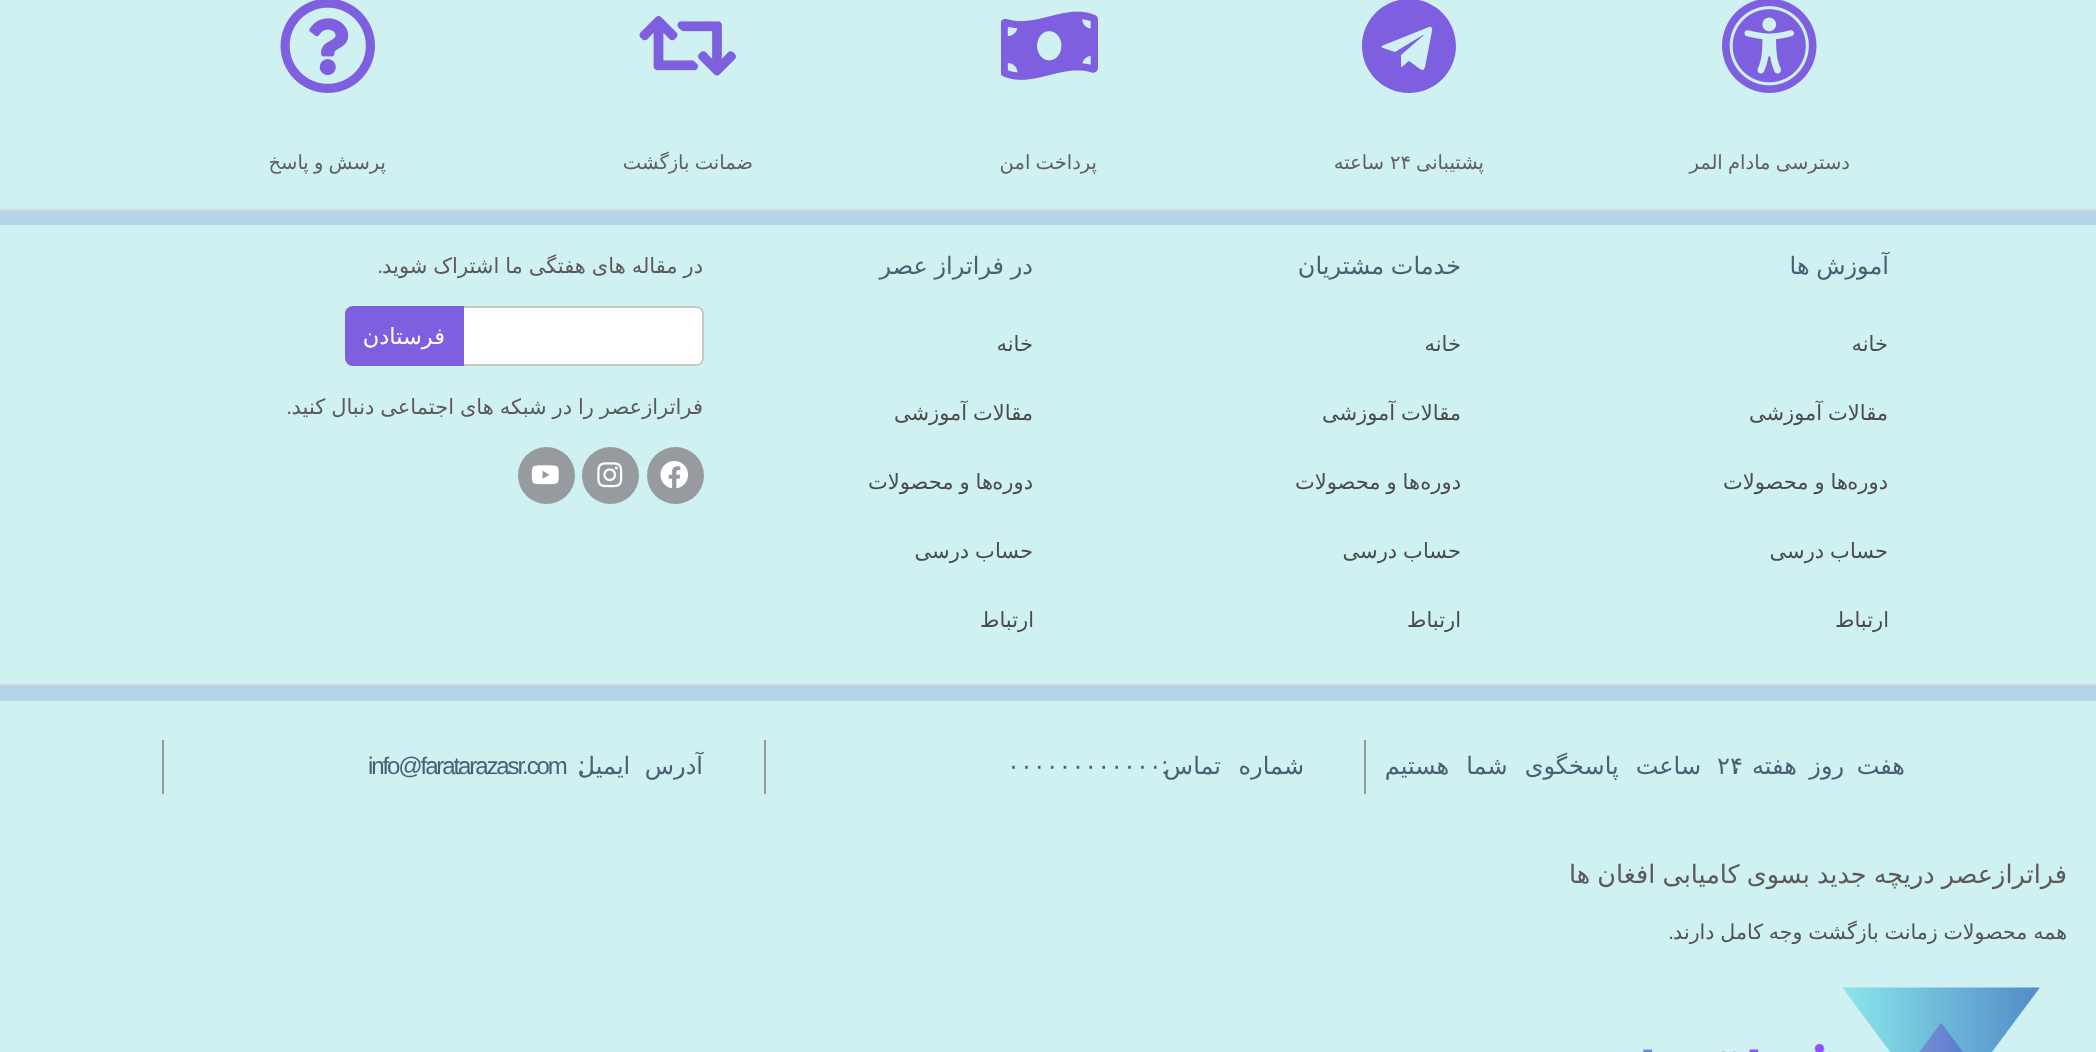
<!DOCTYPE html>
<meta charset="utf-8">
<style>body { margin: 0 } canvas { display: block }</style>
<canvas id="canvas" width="2096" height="1052"></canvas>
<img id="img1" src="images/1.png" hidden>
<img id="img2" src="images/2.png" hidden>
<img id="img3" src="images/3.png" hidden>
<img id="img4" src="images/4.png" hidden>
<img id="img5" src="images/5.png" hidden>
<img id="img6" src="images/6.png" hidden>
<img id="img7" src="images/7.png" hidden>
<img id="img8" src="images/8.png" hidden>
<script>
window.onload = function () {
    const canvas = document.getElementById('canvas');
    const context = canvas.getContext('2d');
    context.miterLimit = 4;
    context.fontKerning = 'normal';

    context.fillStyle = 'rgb(181, 212, 233)';
    context.fillRect(0, 0, 2096, 1052);
    context.fillStyle = 'rgb(208, 241, 241)';
    context.fillRect(0, 0, 2096, 209);
    context.drawImage(document.getElementById('img1'), 1722, 0, 95, 93);
    context.fillStyle = 'rgb(126, 95, 223)';
    context.beginPath();
    context.moveTo(1409, -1);
    context.bezierCurveTo(1383, -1, 1362, 20, 1362, 46);
    context.bezierCurveTo(1362, 72, 1383, 93, 1409, 93);
    context.bezierCurveTo(1435, 93, 1456, 72, 1456, 46);
    context.bezierCurveTo(1456, 20, 1435, -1, 1409, -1);
    context.closePath();
    context.moveTo(1432, 31);
    context.lineTo(1425, 67);
    context.bezierCurveTo(1424, 70, 1423, 71, 1420, 69);
    context.lineTo(1409, 61);
    context.bezierCurveTo(1407, 62, 1403, 67, 1401, 67);
    context.lineTo(1401, 55);
    context.lineTo(1424, 35);
    context.lineTo(1423, 35);
    context.lineTo(1395, 52);
    context.lineTo(1383, 48);
    context.bezierCurveTo(1381, 48, 1381, 46, 1384, 45);
    context.lineTo(1429, 27);
    context.bezierCurveTo(1431, 26, 1433, 28, 1432, 31);
    context.closePath();
    context.fill();
    context.drawImage(document.getElementById('img2'), 1001, 11, 97, 69);
    context.drawImage(document.getElementById('img3'), 639, 16, 97, 60);
    context.drawImage(document.getElementById('img4'), 280, 0, 95, 93);
    context.fillStyle = 'rgb(207, 216, 220)';
    context.fillRect(0, 209, 2096, 2);
    context.fillStyle = 'rgb(208, 241, 241)';
    context.fillRect(0, 225, 2096, 459);
    context.fillStyle = 'rgb(255, 255, 255)';
    context.beginPath();
    context.roundRect(464, 308, 238, 57, [0, 6, 6, 0]);
    context.fill();
    context.fillStyle = 'rgb(200, 200, 200)';
    context.beginPath();
    context.moveTo(464, 306);
    context.lineTo(696, 306);
    context.bezierCurveTo(700, 306, 704, 309, 704, 314);
    context.lineTo(704, 358);
    context.bezierCurveTo(704, 363, 700, 366, 696, 366);
    context.lineTo(464, 366);
    context.closePath();
    context.moveTo(464, 308);
    context.lineTo(696, 308);
    context.bezierCurveTo(699, 308, 702, 310, 702, 314);
    context.lineTo(702, 358);
    context.bezierCurveTo(702, 362, 699, 364, 696, 364);
    context.lineTo(464, 364);
    context.closePath();
    context.fill('evenodd');
    context.fillStyle = 'rgb(126, 95, 223)';
    context.beginPath();
    context.roundRect(345, 306, 119, 60, [8, 0, 0, 8]);
    context.fill();
    context.fillStyle = 'rgb(151, 155, 160)';
    context.beginPath();
    context.arc(675.5, 475.5, 28.5, 0, 2 * Math.PI);
    context.fill();
    context.drawImage(document.getElementById('img5'), 660, 461, 28, 28);
    context.beginPath();
    context.arc(610.5, 475.5, 28.5, 0, 2 * Math.PI);
    context.fill();
    context.drawImage(document.getElementById('img6'), 597, 462, 26, 26);
    context.beginPath();
    context.arc(546.5, 475.5, 28.5, 0, 2 * Math.PI);
    context.fill();
    context.drawImage(document.getElementById('img7'), 531, 465, 28, 20);
    context.fillStyle = 'rgb(207, 216, 220)';
    context.fillRect(0, 684, 2096, 2);
    context.fillStyle = 'rgb(208, 241, 241)';
    context.fillRect(0, 701, 2096, 351);
    context.fillStyle = 'rgb(151, 151, 151)';
    context.fillRect(1364, 740, 2, 54);
    context.fillRect(764, 740, 2, 54);
    context.fillRect(162, 740, 2, 54);
    context.drawImage(document.getElementById('img8'), 1642, 987, 398, 65);
    context.wordSpacing = '-1px';
    context.direction = 'rtl';
    context.font = '19.5px DejaVu Sans';
    context.fillStyle = 'rgb(96, 96, 96)';
    context.fillText('دسترسی مادام المر', 1850, 169);
    context.wordSpacing = '0px';
    context.fillText('پشتیبانی', 1484, 169);
    context.direction = 'ltr';
    context.fillText('۲۴', 1390, 169);
    context.direction = 'rtl';
    context.fillText('ساعته', 1384, 169);
    context.wordSpacing = '-1px';
    context.fillText('پرداخت امن', 1097, 169);
    context.fillText('ضمانت بازگشت', 753, 169);
    context.fillText('پرسش و پاسخ', 386, 169);
    context.font = '24px DejaVu Sans';
    context.fillStyle = 'rgb(74, 95, 115)';
    context.fillText('آموزش ها', 1889, 274);
    context.wordSpacing = '0px';
    context.font = '21px DejaVu Sans';
    context.fillStyle = 'rgb(75, 75, 75)';
    context.fillText('خانه', 1888, 351);
    context.wordSpacing = '-0.75px';
    context.fillText('مقالات آموزشی', 1888, 420);
    context.wordSpacing = '0px';
    context.fillText('دوره', 1888, 489);
    context.wordSpacing = '-0.75px';
    context.fillText('ها و محصولات', 1848, 489);
    context.fillText('حساب درسی', 1888, 558);
    context.wordSpacing = '0px';
    context.fillText('ارتباط', 1889, 627);
    context.wordSpacing = '-1px';
    context.font = '24px DejaVu Sans';
    context.fillStyle = 'rgb(74, 95, 115)';
    context.fillText('خدمات مشتریان', 1461, 274);
    context.wordSpacing = '0px';
    context.font = '21px DejaVu Sans';
    context.fillStyle = 'rgb(75, 75, 75)';
    context.fillText('خانه', 1461, 351);
    context.wordSpacing = '-0.75px';
    context.fillText('مقالات آموزشی', 1461, 420);
    context.wordSpacing = '0px';
    context.fillText('دوره', 1461, 489);
    context.wordSpacing = '-0.75px';
    context.fillText('ها و محصولات', 1420, 489);
    context.fillText('حساب درسی', 1461, 558);
    context.wordSpacing = '0px';
    context.fillText('ارتباط', 1461, 627);
    context.wordSpacing = '-1px';
    context.font = '24px DejaVu Sans';
    context.fillStyle = 'rgb(74, 95, 115)';
    context.fillText('در فراتراز عصر', 1033, 274);
    context.wordSpacing = '0px';
    context.font = '21px DejaVu Sans';
    context.fillStyle = 'rgb(75, 75, 75)';
    context.fillText('خانه', 1033, 351);
    context.wordSpacing = '-0.75px';
    context.fillText('مقالات آموزشی', 1033, 420);
    context.wordSpacing = '0px';
    context.fillText('دوره', 1033, 489);
    context.wordSpacing = '-0.75px';
    context.fillText('ها و محصولات', 993, 489);
    context.fillText('حساب درسی', 1033, 558);
    context.wordSpacing = '0px';
    context.fillText('ارتباط', 1034, 627);
    context.wordSpacing = '-0.75px';
    context.fillStyle = 'rgb(93, 89, 89)';
    context.fillText('در مقاله های هفتگی ما اشتراک شوید', 703, 273);
    context.wordSpacing = '0px';
    context.font = '21px Liberation Sans';
    context.fillText('.', 383, 273);
    context.font = '22.5px DejaVu Sans';
    context.fillStyle = 'rgb(255, 255, 255)';
    context.fillText('فرستادن', 445, 344);
    context.wordSpacing = '-0.75px';
    context.font = '21px DejaVu Sans';
    context.fillStyle = 'rgb(93, 89, 89)';
    context.fillText('فراترازعصر را در شبکه های اجتماعی دنبال کنید', 703, 414);
    context.wordSpacing = '0px';
    context.font = '21px Liberation Sans';
    context.fillText('.', 292, 414);
    context.letterSpacing = '-2.1px';
    context.wordSpacing = '7px';
    context.font = '24px DejaVu Sans';
    context.fillStyle = 'rgb(74, 95, 115)';
    context.fillText('هفت روز هفته ،', 1905, 774);
    context.wordSpacing = '0px';
    context.direction = 'ltr';
    context.fillText('۲۴', 1717, 774);
    context.wordSpacing = '11.5px';
    context.direction = 'rtl';
    context.fillText('ساعت پاسخگوی شما هستیم', 1701, 774);
    context.wordSpacing = '12px';
    context.fillText('شماره تماس', 1304, 774);
    context.wordSpacing = '0px';
    context.font = '24px Liberation Sans';
    context.fillText(':', 1166, 774);
    context.direction = 'ltr';
    context.font = '24px DejaVu Sans';
    context.fillText('۰۰۰۰۰۰۰۰۰۰۰۰', 1007, 774);
    context.wordSpacing = '9px';
    context.direction = 'rtl';
    context.fillText('آدرس ایمیل', 703, 774);
    context.wordSpacing = '0px';
    context.font = '24px Liberation Sans';
    context.fillText(':', 583, 774);
    context.direction = 'ltr';
    context.fillText('info@faratarazasr.com', 368, 774);
    context.letterSpacing = '0px';
    context.wordSpacing = '-1px';
    context.direction = 'rtl';
    context.font = '25.5px DejaVu Sans';
    context.fillStyle = 'rgb(93, 89, 89)';
    context.fillText('فراترازعصر دریچه جدید بسوی کامیابی افغان ها', 2067, 883);
    context.wordSpacing = '-0.75px';
    context.font = '20.6px DejaVu Sans';
    context.fillStyle = 'rgb(83, 83, 83)';
    context.fillText('همه محصولات زمانت بازگشت وجه کامل دارند', 2067, 939);
    context.wordSpacing = '0px';
    context.font = '20.6px Liberation Sans';
    context.fillText('.', 1674, 939);
};
</script>
